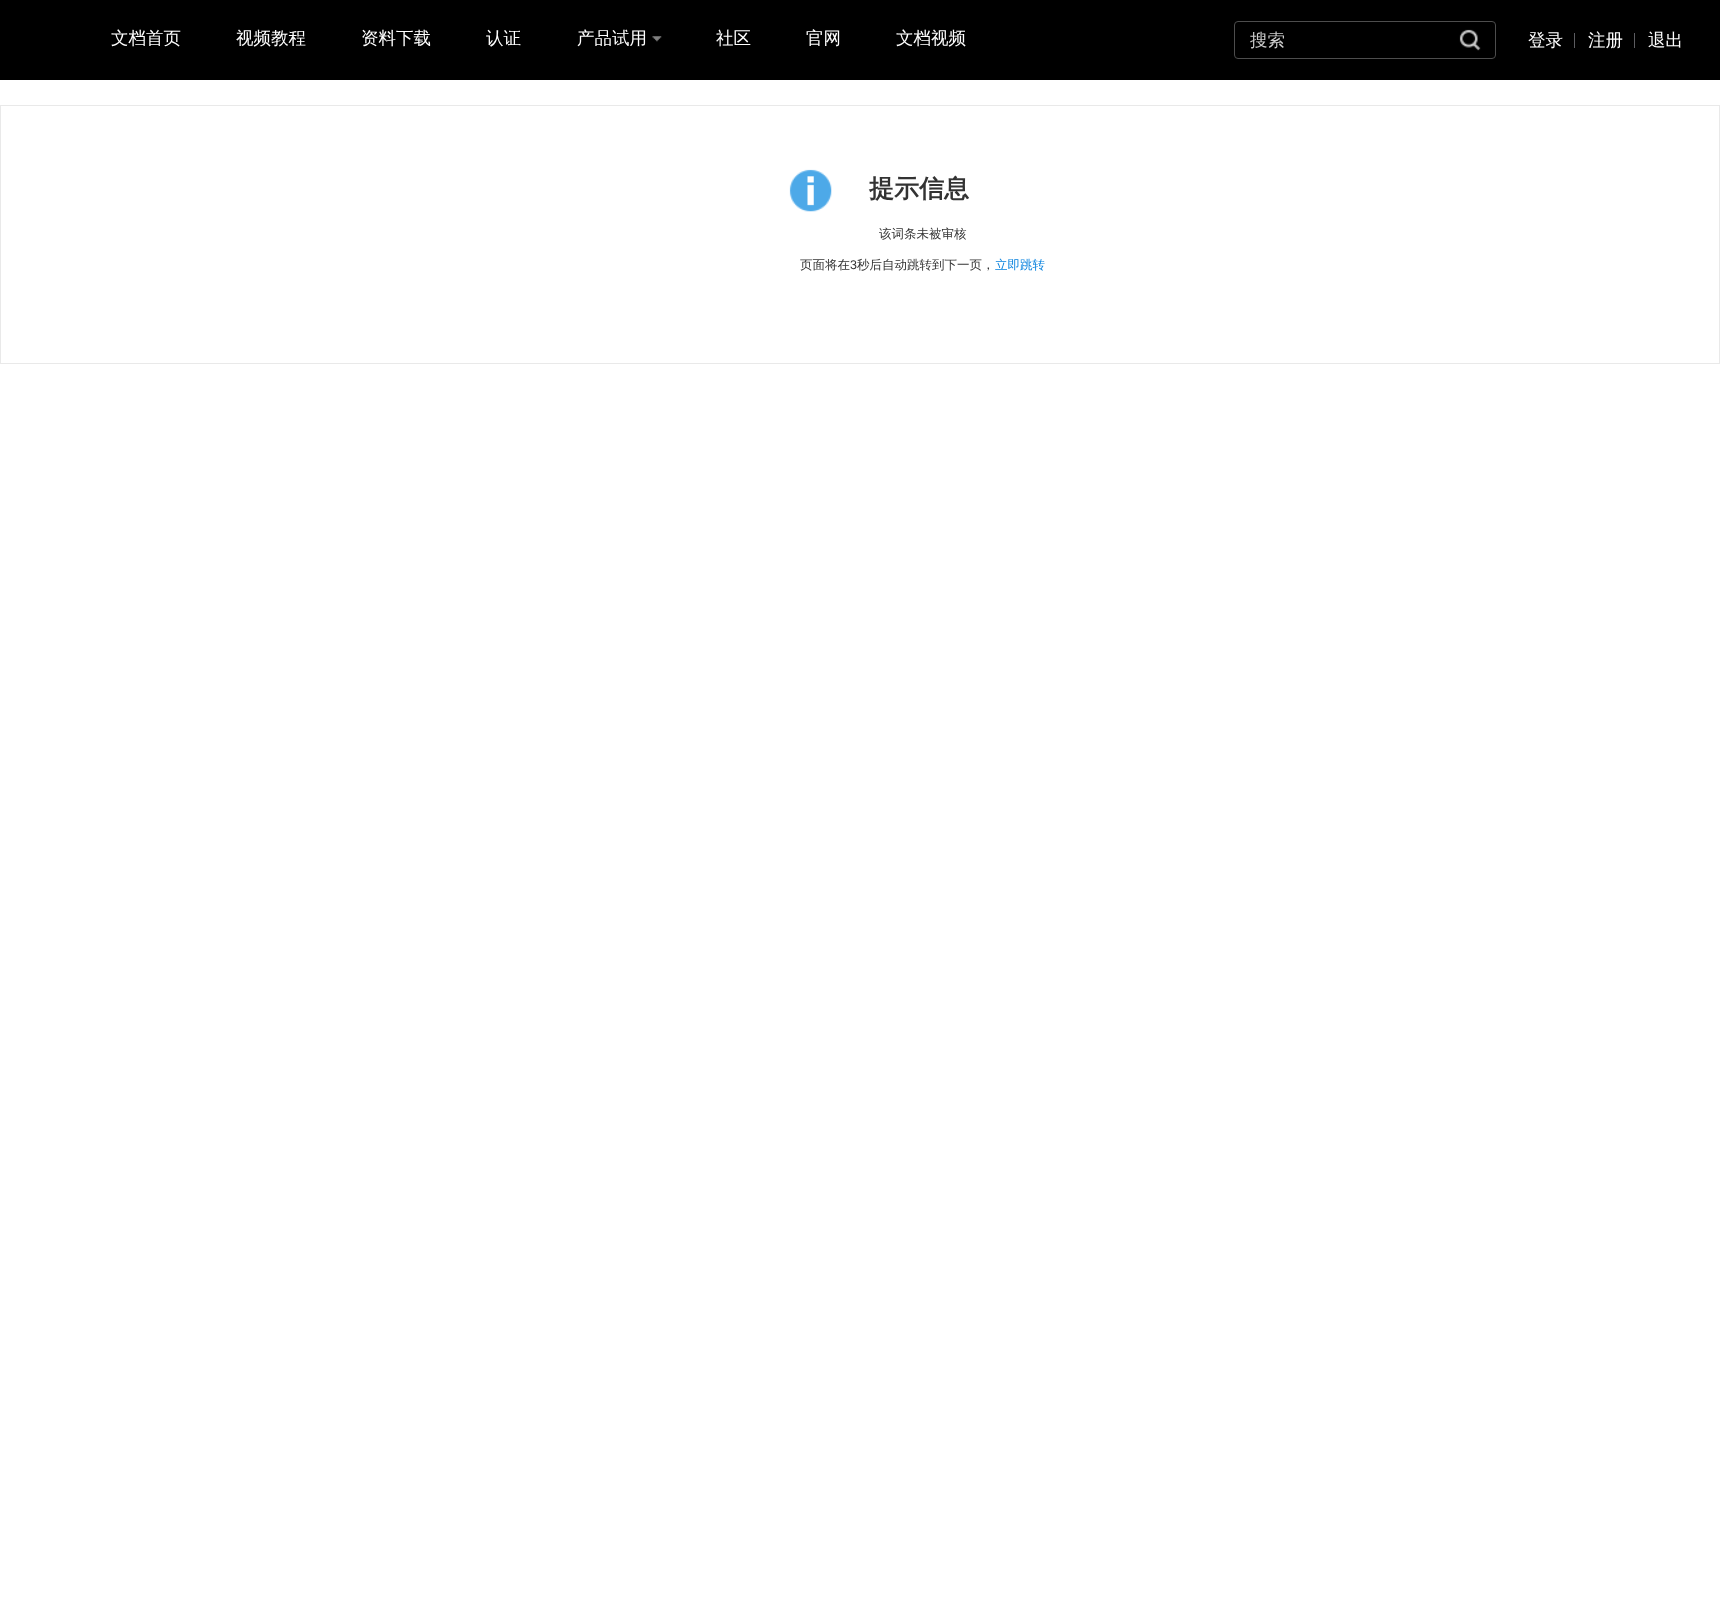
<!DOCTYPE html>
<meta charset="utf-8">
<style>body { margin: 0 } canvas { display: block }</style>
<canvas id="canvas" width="1720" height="1603"></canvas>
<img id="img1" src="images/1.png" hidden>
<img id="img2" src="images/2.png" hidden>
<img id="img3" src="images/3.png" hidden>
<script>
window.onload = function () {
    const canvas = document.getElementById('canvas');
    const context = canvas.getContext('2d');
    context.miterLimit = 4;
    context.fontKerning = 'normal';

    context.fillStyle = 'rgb(255, 255, 255)';
    context.fillRect(0, 0, 1720, 1603);
    context.fillStyle = 'rgb(0, 0, 0)';
    context.fillRect(0, 0, 1720, 80);
    context.drawImage(document.getElementById('img1'), 652, 36, 10, 6);
    context.beginPath();
    context.roundRect(1234.5, 21.5, 261, 37, 3.5);
    context.strokeStyle = 'rgb(77, 77, 77)';
    context.stroke();
    context.drawImage(document.getElementById('img2'), 1459, 29, 22, 22);
    context.fillStyle = 'rgb(92, 92, 96)';
    context.fillRect(1574, 33, 1, 15);
    context.fillRect(1634, 33, 1, 15);
    context.strokeStyle = 'rgb(233, 233, 233)';
    context.strokeRect(0.5, 105.5, 1719, 258);
    context.drawImage(document.getElementById('img3'), 789, 169, 43, 43);
    context.font = '500 17.5px WenQuanYi Zen Hei';
    context.fillStyle = 'rgb(255, 255, 255)';
    context.fillText('文档首页', 111, 44);
    context.fillText('视频教程', 236, 44);
    context.fillText('资料下载', 361, 44);
    context.fillText('认证', 486, 44);
    context.fillText('产品试用', 577, 44);
    context.fillText('社区', 716, 44);
    context.fillText('官网', 806, 44);
    context.fillText('文档视频', 896, 44);
    context.fillStyle = 'rgb(204, 204, 204)';
    context.fillText('搜索', 1250, 46);
    context.fillStyle = 'rgb(255, 255, 255)';
    context.fillText('登录', 1528, 46);
    context.fillText('注册', 1588, 46);
    context.fillText('退出', 1648, 46);
    context.font = 'bold 25px WenQuanYi Zen Hei';
    context.fillStyle = 'rgb(51, 51, 51)';
    context.fillText('提示信息', 869, 197);
    context.font = '500 12.5px WenQuanYi Zen Hei';
    context.fillText('该词条未被审核', 879, 238);
    context.fillText('页面将在', 800, 269);
    context.font = '12.5px Liberation Sans';
    context.fillText('3', 850, 269);
    context.font = '500 12.5px WenQuanYi Zen Hei';
    context.fillText('秒后自动跳转到下一页，', 857, 269);
    context.fillStyle = 'rgb(8, 130, 222)';
    context.fillText('立即跳转', 995, 269);
};
</script>
